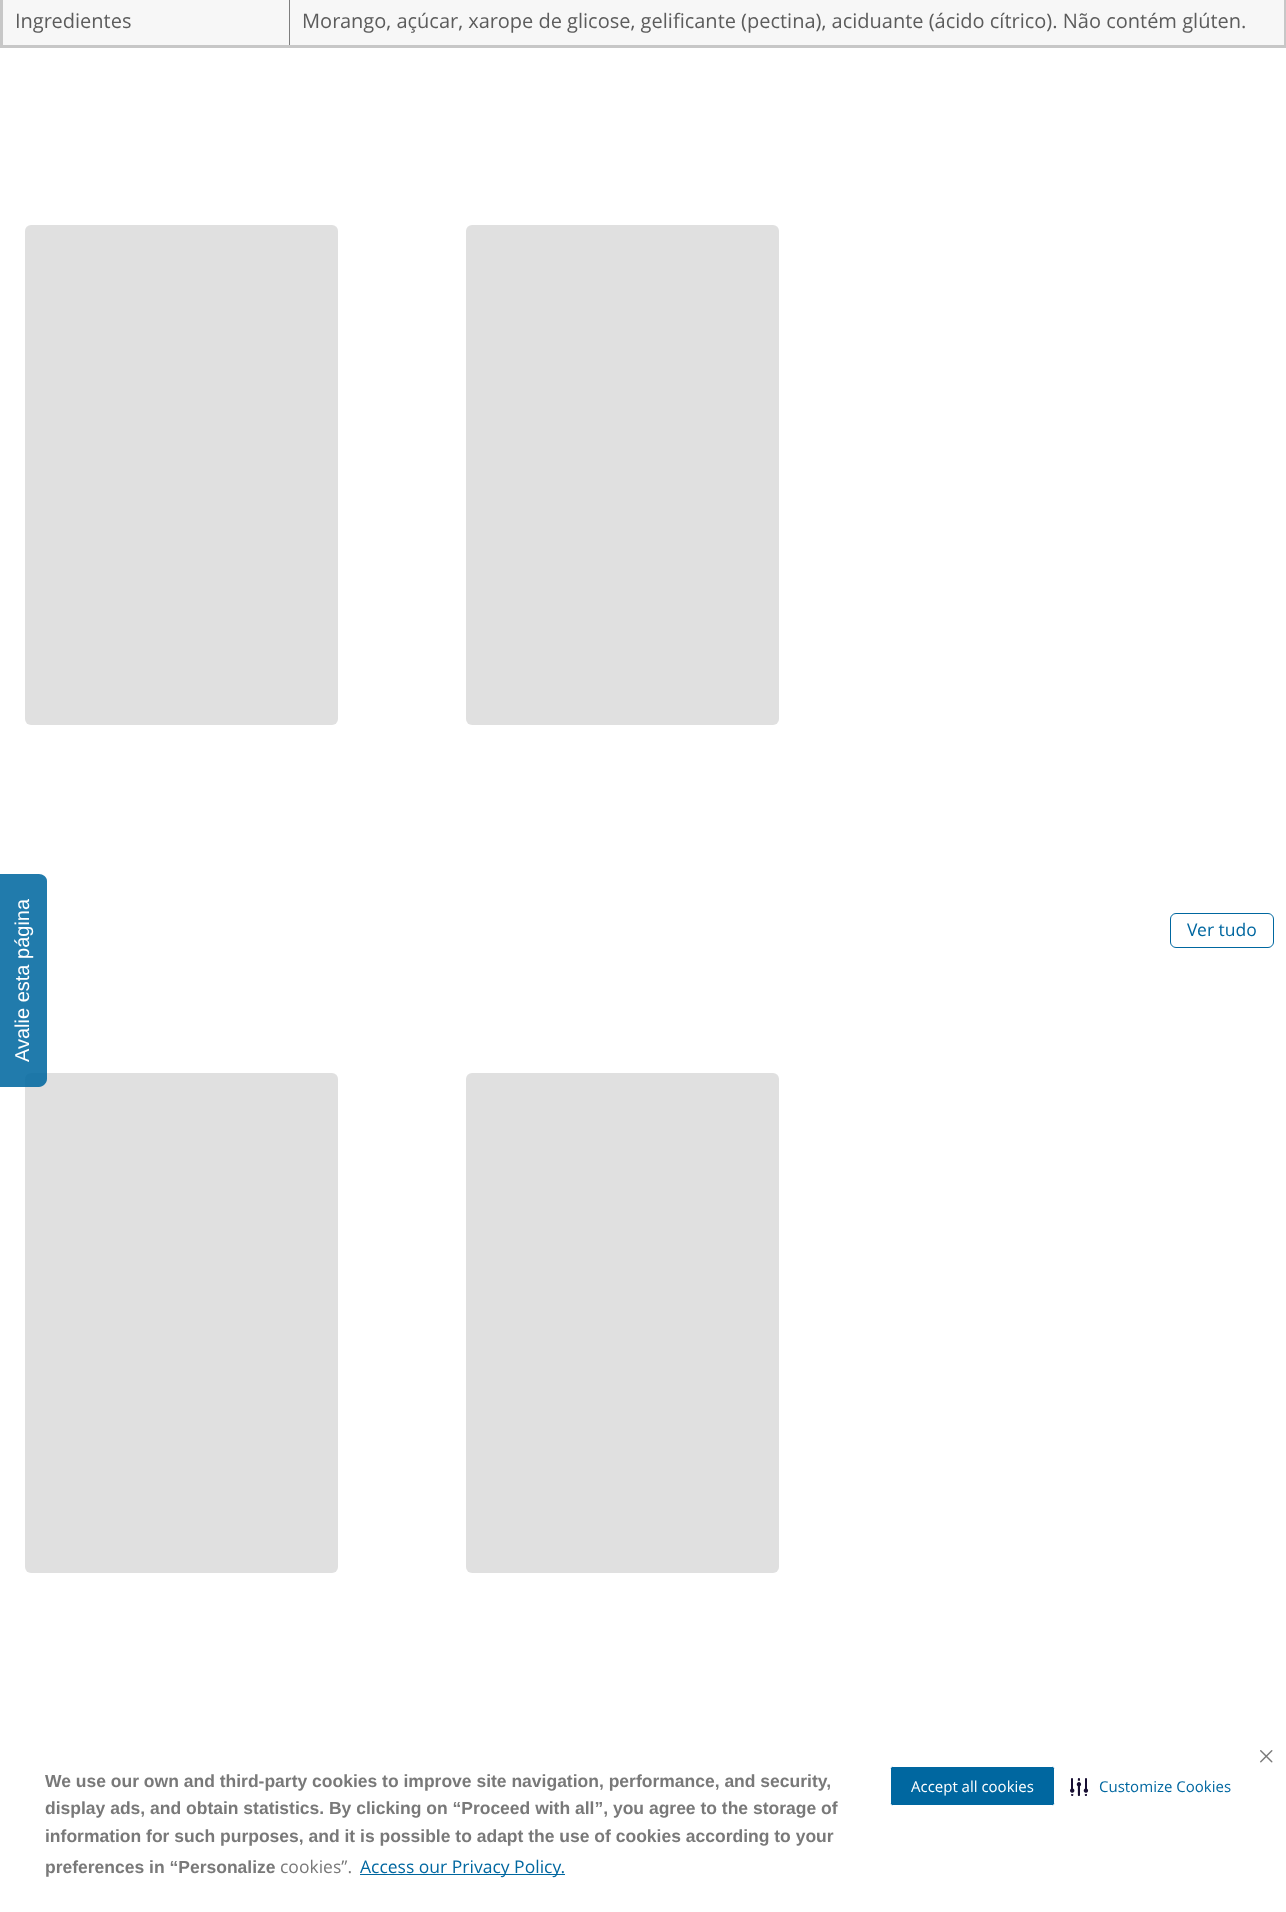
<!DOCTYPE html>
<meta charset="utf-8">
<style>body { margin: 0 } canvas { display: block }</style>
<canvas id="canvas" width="1286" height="1912"></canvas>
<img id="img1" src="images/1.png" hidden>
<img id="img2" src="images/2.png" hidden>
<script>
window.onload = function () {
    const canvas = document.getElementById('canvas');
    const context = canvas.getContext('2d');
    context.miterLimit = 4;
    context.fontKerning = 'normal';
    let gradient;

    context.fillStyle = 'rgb(255, 255, 255)';
    context.fillRect(0, 0, 1286, 1912);
    context.fillStyle = 'rgb(199, 199, 199)';
    context.fillRect(1284, 0, 2, 48);
    context.fillStyle = 'rgb(247, 247, 247)';
    context.fillRect(3, 0, 1281, 45);
    context.fillStyle = 'rgb(126, 126, 126)';
    context.fillRect(289, 0, 1, 46);
    context.fillStyle = 'rgb(199, 199, 199)';
    context.fillRect(0, 45, 1286, 3);
    context.fillRect(0, 0, 3, 48);
    gradient = context.createLinearGradient(25, 475, 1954, 475);
    gradient.addColorStop(0, 'rgb(224, 224, 224)');
    gradient.addColorStop(0.5, 'rgb(224, 224, 224)');
    gradient.addColorStop(0.6, 'rgb(232, 232, 232)');
    gradient.addColorStop(0.65, 'rgb(224, 224, 224)');
    gradient.addColorStop(1, 'rgb(224, 224, 224)');
    context.fillStyle = gradient;
    context.beginPath();
    context.roundRect(25, 225, 313, 500, 6);
    context.fill();
    context.beginPath();
    context.roundRect(466, 225, 313, 500, 6);
    context.fill();
    context.beginPath();
    context.roundRect(1170.5, 913.5, 103, 34, 5.5);
    context.strokeStyle = 'rgb(0, 103, 160)';
    context.stroke();
    gradient = context.createLinearGradient(25, 1323, 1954, 1323);
    gradient.addColorStop(0, 'rgb(224, 224, 224)');
    gradient.addColorStop(0.5, 'rgb(224, 224, 224)');
    gradient.addColorStop(0.6, 'rgb(232, 232, 232)');
    gradient.addColorStop(0.65, 'rgb(224, 224, 224)');
    gradient.addColorStop(1, 'rgb(224, 224, 224)');
    context.fillStyle = gradient;
    context.beginPath();
    context.roundRect(25, 1073, 313, 500, 6);
    context.fill();
    context.beginPath();
    context.roundRect(466, 1073, 313, 500, 6);
    context.fill();
    context.fillStyle = 'rgba(0, 103, 160, 0.87)';
    context.beginPath();
    context.moveTo(-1, 1087);
    context.lineTo(-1, 874);
    context.lineTo(39, 874);
    context.bezierCurveTo(43, 874, 47, 877, 47, 881);
    context.lineTo(47, 1079);
    context.bezierCurveTo(47, 1083, 43, 1087, 39, 1087);
    context.closePath();
    context.fill();
    context.fillStyle = 'rgb(0, 103, 160)';
    context.fillRect(360, 1874, 205, 1);
    context.drawImage(document.getElementById('img1'), 1260, 1750, 13, 13);
    context.beginPath();
    context.roundRect(890.5, 1766.5, 164, 39, 2);
    context.fill();
    context.strokeStyle = 'rgb(255, 255, 255)';
    context.stroke();
    context.drawImage(document.getElementById('img2'), 1070, 1778, 19, 18);
    context.font = '20px Open Sans';
    context.fillStyle = 'rgb(92, 92, 92)';
    context.fillText('Ingredientes', 15, 28);
    context.fillText('Morango, açúcar, xarope de glicose, gelificante (pectina), aciduante (ácido cítrico). Não contém glúten.', 302, 28);
    context.font = '17.5px Open Sans';
    context.fillStyle = 'rgb(0, 103, 160)';
    context.fillText('Ver tudo', 1187, 936);
    context.font = '20px Liberation Sans';
    context.fillStyle = 'rgb(255, 255, 255)';
    context.save();
    context.translate(29, 1062);
    context.rotate(-90 * Math.PI / 180);
    context.fillText('Avalie esta página', 0, 0);
    context.restore();
    context.font = 'bold 17.5px Liberation Sans';
    context.fillStyle = 'rgb(121, 121, 121)';
    context.fillText('We use our own and third-party cookies to improve site navigation, performance, and security,', 45, 1787);
    context.fillText('display ads, and obtain statistics. By clicking on “Proceed with all”, you agree to the storage of', 45, 1814);
    context.fillText('information for such purposes, and it is possible to adapt the use of cookies according to your', 45, 1842);
    context.fillText('preferences in “Personalize', 45, 1873);
    context.font = '17.5px Open Sans';
    context.fillText('cookies”.', 280, 1873);
    context.fillStyle = 'rgb(0, 103, 160)';
    context.fillText('Access our Privacy Policy.', 360, 1873);
    context.font = '15px Open Sans';
    context.fillStyle = 'rgb(255, 255, 255)';
    context.fillText('Accept all cookies', 911, 1792);
    context.fillStyle = 'rgb(0, 103, 160)';
    context.fillText('Customize Cookies', 1099, 1792);
};
</script>
